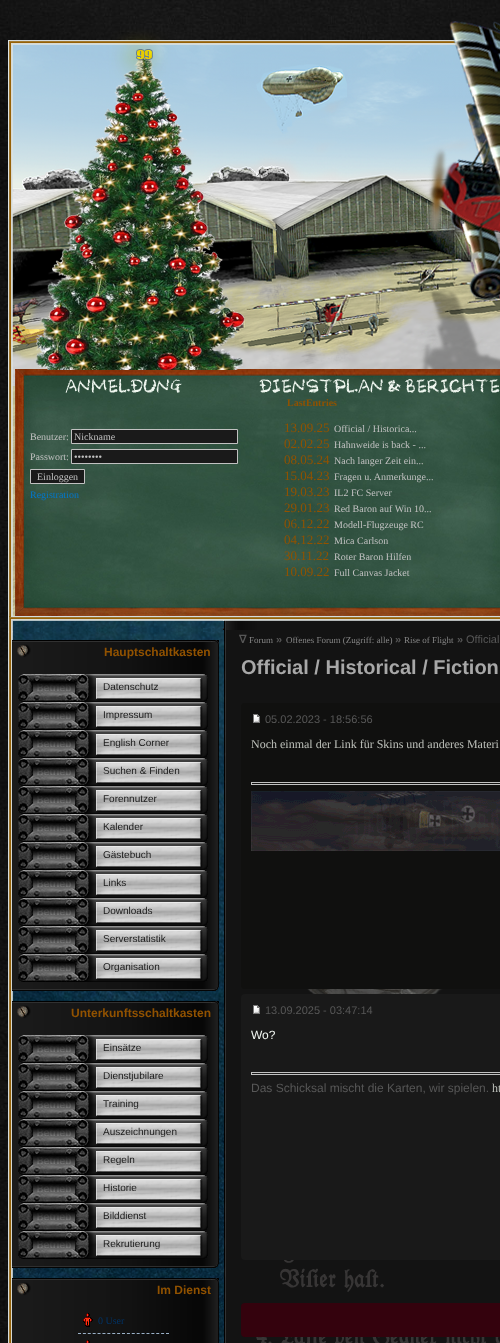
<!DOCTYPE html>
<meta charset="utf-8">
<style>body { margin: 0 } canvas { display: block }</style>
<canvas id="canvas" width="500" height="1343"></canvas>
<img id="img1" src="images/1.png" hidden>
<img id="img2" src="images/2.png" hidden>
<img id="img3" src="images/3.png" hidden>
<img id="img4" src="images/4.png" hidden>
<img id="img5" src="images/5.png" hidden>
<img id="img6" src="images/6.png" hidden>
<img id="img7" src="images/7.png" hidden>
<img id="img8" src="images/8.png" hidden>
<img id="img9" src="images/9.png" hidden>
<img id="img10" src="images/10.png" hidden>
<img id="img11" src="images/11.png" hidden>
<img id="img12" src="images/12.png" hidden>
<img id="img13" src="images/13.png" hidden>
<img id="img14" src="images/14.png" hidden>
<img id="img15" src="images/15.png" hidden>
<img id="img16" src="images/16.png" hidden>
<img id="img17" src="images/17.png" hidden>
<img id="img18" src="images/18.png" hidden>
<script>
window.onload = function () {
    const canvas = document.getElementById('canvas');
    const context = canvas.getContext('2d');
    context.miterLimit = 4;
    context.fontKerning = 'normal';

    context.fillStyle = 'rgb(255, 255, 255)';
    context.fillRect(0, 0, 500, 1343);
    context.drawImage(document.getElementById('img1'), 0, 0, 500, 1343);
    context.drawImage(document.getElementById('img2'), 8, 21, 492, 365);
    context.drawImage(document.getElementById('img3'), 8, 386, 257, 230);
    context.fillStyle = 'rgb(26, 26, 26)';
    context.beginPath();
    context.rect(71.5, 429.5, 166, 14);
    context.fill();
    context.strokeStyle = 'rgb(193, 193, 193)';
    context.stroke();
    context.beginPath();
    context.rect(71.5, 449.5, 166, 14);
    context.fill();
    context.stroke();
    context.beginPath();
    context.rect(30.5, 469.5, 54, 14);
    context.fill();
    context.stroke();
    context.drawImage(document.getElementById('img4'), 265, 386, 235, 230);
    context.drawImage(document.getElementById('img5'), 8, 616, 492, 14);
    context.drawImage(document.getElementById('img6'), 8, 630, 492, 713);
    context.drawImage(document.getElementById('img7'), 12, 640, 207, 20);
    context.drawImage(document.getElementById('img8'), 12, 660, 207, 327);
    context.drawImage(document.getElementById('img9'), 18, 674, 190, 28);
    context.drawImage(document.getElementById('img9'), 18, 702, 190, 28);
    context.drawImage(document.getElementById('img9'), 18, 730, 190, 28);
    context.drawImage(document.getElementById('img9'), 18, 758, 190, 28);
    context.drawImage(document.getElementById('img9'), 18, 786, 190, 28);
    context.drawImage(document.getElementById('img9'), 18, 814, 190, 28);
    context.drawImage(document.getElementById('img9'), 18, 842, 190, 28);
    context.drawImage(document.getElementById('img9'), 18, 870, 190, 28);
    context.drawImage(document.getElementById('img9'), 18, 898, 190, 28);
    context.drawImage(document.getElementById('img9'), 18, 926, 190, 28);
    context.drawImage(document.getElementById('img9'), 18, 954, 190, 28);
    context.drawImage(document.getElementById('img10'), 12, 987, 207, 4);
    context.drawImage(document.getElementById('img7'), 12, 1001, 207, 20);
    context.drawImage(document.getElementById('img11'), 12, 1021, 207, 243);
    context.drawImage(document.getElementById('img9'), 18, 1035, 190, 28);
    context.drawImage(document.getElementById('img9'), 18, 1063, 190, 28);
    context.drawImage(document.getElementById('img9'), 18, 1091, 190, 28);
    context.drawImage(document.getElementById('img9'), 18, 1119, 190, 28);
    context.drawImage(document.getElementById('img9'), 18, 1147, 190, 28);
    context.drawImage(document.getElementById('img9'), 18, 1175, 190, 28);
    context.drawImage(document.getElementById('img9'), 18, 1203, 190, 28);
    context.drawImage(document.getElementById('img9'), 18, 1231, 190, 28);
    context.drawImage(document.getElementById('img12'), 12, 1264, 207, 4);
    context.drawImage(document.getElementById('img7'), 12, 1278, 207, 20);
    context.drawImage(document.getElementById('img13'), 12, 1298, 207, 45);
    context.drawImage(document.getElementById('img14'), 83, 1313, 10, 14);
    context.beginPath();
    context.moveTo(78, 1333.5);
    context.lineTo(169, 1333.5);
    context.strokeStyle = 'rgb(154, 177, 200)';
    context.setLineDash([3, 1.89]);
    context.stroke();
    context.drawImage(document.getElementById('img15'), 86, 1340, 4, 3);
    context.fillStyle = 'rgb(16, 16, 15)';
    context.beginPath();
    context.roundRect(241, 703, 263, 286, 4);
    context.fill();
    context.drawImage(document.getElementById('img16'), 253, 714, 7, 9);
    context.strokeStyle = 'rgb(193, 193, 193)';
    context.setLineDash([]);
    context.strokeRect(251.5, 782.5, 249, 2);
    context.drawImage(document.getElementById('img17'), 251, 791, 249, 60);
    context.fillStyle = 'rgb(25, 25, 25)';
    context.beginPath();
    context.roundRect(241, 994, 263, 266, 4);
    context.fill();
    context.drawImage(document.getElementById('img18'), 253, 1005, 7, 9);
    context.strokeRect(251.5, 1072.5, 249, 2);
    context.fillStyle = 'rgb(52, 2, 13)';
    context.beginPath();
    context.roundRect(241, 1303, 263, 34, 4);
    context.fill();
    context.font = '10px Liberation Serif';
    context.fillStyle = 'rgb(193, 193, 193)';
    context.fillText('Benutzer:', 30, 440);
    context.fillText('Nickname', 74, 440);
    context.fillText('Passwort:', 30, 460);
    context.fillText('••••••••', 74, 460);
    context.fillText('Einloggen', 37, 480);
    context.fillStyle = 'rgb(0, 119, 204)';
    context.fillText('Registration', 30, 498);
    context.font = 'bold 10px Liberation Serif';
    context.fillStyle = 'rgb(145, 82, 0)';
    context.fillText('LastEntries', 287, 406);
    context.font = '13px Liberation Serif';
    context.fillText('13.09.25', 284, 432);
    context.font = '10px Liberation Serif';
    context.fillStyle = 'rgb(193, 193, 193)';
    context.fillText('Official / Historica...', 334, 432);
    context.font = '13px Liberation Serif';
    context.fillStyle = 'rgb(145, 82, 0)';
    context.fillText('02.02.25', 284, 448);
    context.font = '10px Liberation Serif';
    context.fillStyle = 'rgb(193, 193, 193)';
    context.fillText('Hahnweide is back - ...', 334, 448);
    context.font = '13px Liberation Serif';
    context.fillStyle = 'rgb(145, 82, 0)';
    context.fillText('08.05.24', 284, 464);
    context.font = '10px Liberation Serif';
    context.fillStyle = 'rgb(193, 193, 193)';
    context.fillText('Nach langer Zeit ein...', 334, 464);
    context.font = '13px Liberation Serif';
    context.fillStyle = 'rgb(145, 82, 0)';
    context.fillText('15.04.23', 284, 480);
    context.font = '10px Liberation Serif';
    context.fillStyle = 'rgb(193, 193, 193)';
    context.fillText('Fragen u. Anmerkunge...', 334, 480);
    context.font = '13px Liberation Serif';
    context.fillStyle = 'rgb(145, 82, 0)';
    context.fillText('19.03.23', 284, 496);
    context.font = '10px Liberation Serif';
    context.fillStyle = 'rgb(193, 193, 193)';
    context.fillText('IL2 FC Server', 334, 496);
    context.font = '13px Liberation Serif';
    context.fillStyle = 'rgb(145, 82, 0)';
    context.fillText('29.01.23', 284, 512);
    context.font = '10px Liberation Serif';
    context.fillStyle = 'rgb(193, 193, 193)';
    context.fillText('Red Baron auf Win 10...', 334, 512);
    context.font = '13px Liberation Serif';
    context.fillStyle = 'rgb(145, 82, 0)';
    context.fillText('06.12.22', 284, 528);
    context.font = '10px Liberation Serif';
    context.fillStyle = 'rgb(193, 193, 193)';
    context.fillText('Modell-Flugzeuge RC', 334, 528);
    context.font = '13px Liberation Serif';
    context.fillStyle = 'rgb(145, 82, 0)';
    context.fillText('04.12.22', 284, 544);
    context.font = '10px Liberation Serif';
    context.fillStyle = 'rgb(193, 193, 193)';
    context.fillText('Mica Carlson', 334, 544);
    context.font = '13px Liberation Serif';
    context.fillStyle = 'rgb(145, 82, 0)';
    context.fillText('30.11.22', 284, 560);
    context.font = '10px Liberation Serif';
    context.fillStyle = 'rgb(193, 193, 193)';
    context.fillText('Roter Baron Hilfen', 334, 560);
    context.font = '13px Liberation Serif';
    context.fillStyle = 'rgb(145, 82, 0)';
    context.fillText('10.09.22', 284, 576);
    context.font = '10px Liberation Serif';
    context.fillStyle = 'rgb(193, 193, 193)';
    context.fillText('Full Canvas Jacket', 334, 576);
    context.font = 'bold 12px Liberation Sans';
    context.fillStyle = 'rgb(145, 82, 0)';
    context.fillText('Hauptschaltkasten', 104, 656);
    context.font = '10px Liberation Sans';
    context.fillStyle = 'rgb(28, 28, 28)';
    context.fillText('Datenschutz', 103, 690);
    context.fillText('Impressum', 103, 718);
    context.fillText('English Corner', 103, 746);
    context.fillText('Suchen & Finden', 103, 774);
    context.fillText('Forennutzer', 103, 802);
    context.fillText('Kalender', 103, 830);
    context.fillText('Gästebuch', 103, 858);
    context.fillText('Links', 103, 886);
    context.fillText('Downloads', 103, 914);
    context.fillText('Serverstatistik', 103, 942);
    context.fillText('Organisation', 103, 970);
    context.font = 'bold 12px Liberation Sans';
    context.fillStyle = 'rgb(145, 82, 0)';
    context.fillText('Unterkunftsschaltkasten', 71, 1017);
    context.font = '10px Liberation Sans';
    context.fillStyle = 'rgb(28, 28, 28)';
    context.fillText('Einsätze', 103, 1051);
    context.fillText('Dienstjubilare', 103, 1079);
    context.fillText('Training', 103, 1107);
    context.fillText('Auszeichnungen', 103, 1135);
    context.fillText('Regeln', 103, 1163);
    context.fillText('Historie', 103, 1191);
    context.fillText('Bilddienst', 103, 1219);
    context.fillText('Rekrutierung', 103, 1247);
    context.font = 'bold 12px Liberation Sans';
    context.fillStyle = 'rgb(145, 82, 0)';
    context.fillText('Im Dienst', 157, 1294);
    context.font = '10px Liberation Serif';
    context.fillStyle = 'rgb(0, 51, 102)';
    context.fillText('0 User', 98, 1324);
    context.font = 'bold 11px DejaVu Sans';
    context.fillStyle = 'rgb(87, 87, 87)';
    context.fillText('∇', 239, 643);
    context.font = '9px Liberation Serif';
    context.fillStyle = 'rgb(132, 132, 132)';
    context.fillText('Forum', 249, 643);
    context.font = 'bold 11px Liberation Sans';
    context.fillStyle = 'rgb(87, 87, 87)';
    context.fillText('»', 276, 643);
    context.font = '9px Liberation Serif';
    context.fillStyle = 'rgb(132, 132, 132)';
    context.fillText('Offenes Forum (Zugriff: alle)', 286, 643);
    context.font = 'bold 11px Liberation Sans';
    context.fillStyle = 'rgb(87, 87, 87)';
    context.fillText('»', 395, 643);
    context.font = '9px Liberation Serif';
    context.fillStyle = 'rgb(132, 132, 132)';
    context.fillText('Rise of Flight', 404, 643);
    context.font = 'bold 11px Liberation Sans';
    context.fillStyle = 'rgb(87, 87, 87)';
    context.fillText('»', 457, 643);
    context.font = '11px Liberation Sans';
    context.fillText('Official', 466, 643);
    context.font = 'bold 20px Liberation Sans';
    context.fillStyle = 'rgb(168, 168, 168)';
    context.fillText('Official / Historical / Fiction', 241, 674);
    context.font = '11px Liberation Sans';
    context.fillStyle = 'rgb(87, 87, 87)';
    context.fillText('05.02.2023 - 18:56:56', 265, 723);
    context.font = '12px Liberation Serif';
    context.fillStyle = 'rgb(189, 192, 186)';
    context.fillText('Noch einmal der Link für Skins und anderes Materi', 251, 748);
    context.font = '11px Liberation Sans';
    context.fillStyle = 'rgb(87, 87, 87)';
    context.fillText('13.09.2025 - 03:47:14', 265, 1014);
    context.font = '12px Liberation Sans';
    context.fillStyle = 'rgb(241, 246, 241)';
    context.fillText('Wo?', 251, 1039);
    context.fillStyle = 'rgb(87, 87, 87)';
    context.fillText('Das Schicksal mischt die Karten, wir spielen.', 251, 1092);
    context.font = '12px Liberation Serif';
    context.fillStyle = 'rgb(189, 192, 186)';
    context.fillText('ht', 492, 1092);
};
</script>
